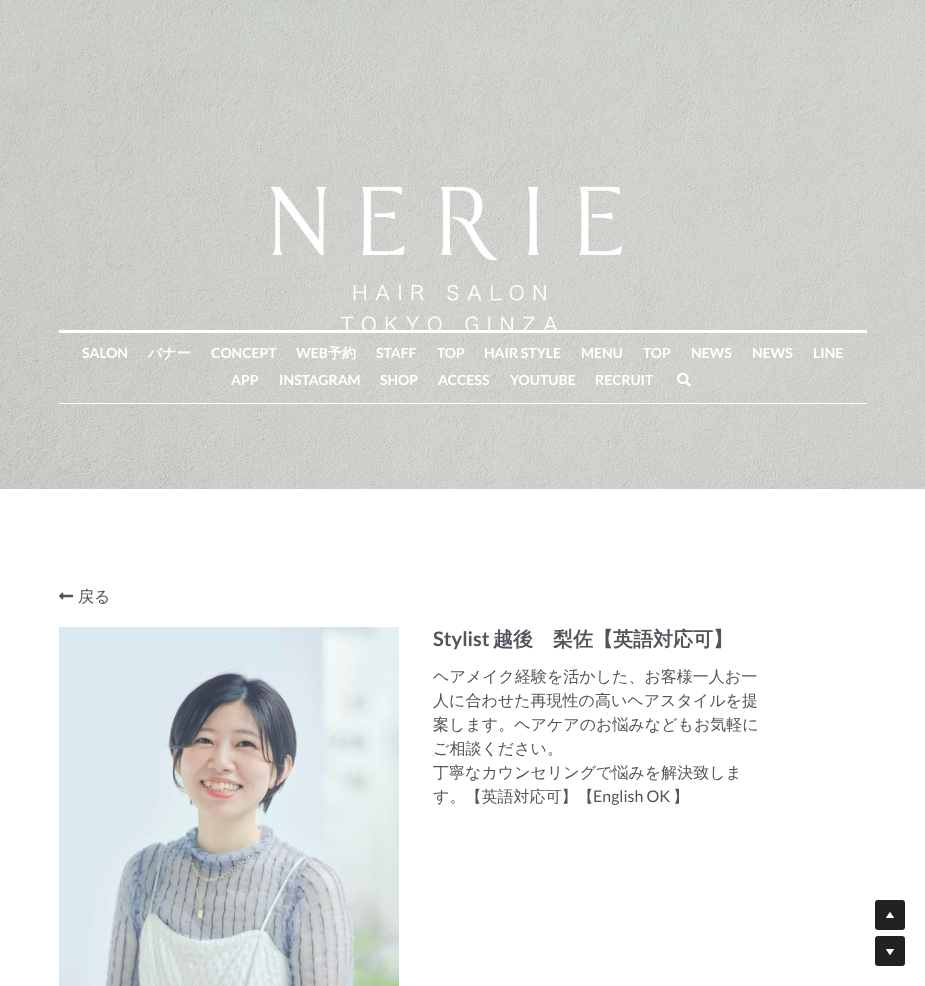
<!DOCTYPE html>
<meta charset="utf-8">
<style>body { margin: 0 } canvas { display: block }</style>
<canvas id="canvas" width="925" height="986"></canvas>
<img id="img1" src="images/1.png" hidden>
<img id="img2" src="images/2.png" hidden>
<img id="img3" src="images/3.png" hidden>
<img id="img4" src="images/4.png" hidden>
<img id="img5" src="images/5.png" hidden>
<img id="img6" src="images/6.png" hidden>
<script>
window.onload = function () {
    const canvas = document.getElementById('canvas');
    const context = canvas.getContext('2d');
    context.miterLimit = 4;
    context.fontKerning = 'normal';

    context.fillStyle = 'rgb(255, 255, 255)';
    context.fillRect(0, 0, 925, 986);
    context.drawImage(document.getElementById('img1'), 0, 0, 925, 489);
    context.fillRect(59, 330, 808, 3);
    context.fillRect(59, 403, 808, 1);
    context.drawImage(document.getElementById('img2'), 677, 372, 14, 15);
    context.drawImage(document.getElementById('img3'), 59, 592, 15, 8);
    context.drawImage(document.getElementById('img4'), 59, 627, 340, 359);
    context.fillStyle = 'rgb(34, 34, 34)';
    context.beginPath();
    context.roundRect(875, 900, 30, 30, 3);
    context.fill();
    context.drawImage(document.getElementById('img5'), 886, 912, 8, 6);
    context.beginPath();
    context.roundRect(875, 936, 30, 30, 3);
    context.fill();
    context.drawImage(document.getElementById('img6'), 886, 949, 8, 6);
    context.font = 'bold 14px Lato';
    context.fillStyle = 'rgb(255, 255, 255)';
    context.fillText('SALON', 82, 358);
    context.font = 'bold 14px WenQuanYi Zen Hei';
    context.fillText('バナー', 148, 358);
    context.font = 'bold 14px Lato';
    context.fillText('CONCEPT', 211, 358);
    context.fillText('WEB', 296, 358);
    context.font = 'bold 14px WenQuanYi Zen Hei';
    context.fillText('予約', 328, 358);
    context.font = 'bold 14px Lato';
    context.fillText('STAFF', 376, 358);
    context.fillText('TOP', 437, 358);
    context.fillText('HAIR STYLE', 484, 358);
    context.fillText('MENU', 581, 358);
    context.fillText('TOP', 643, 358);
    context.fillText('NEWS', 691, 358);
    context.fillText('NEWS', 752, 358);
    context.fillText('LINE', 813, 358);
    context.fillText('APP', 231, 385);
    context.fillText('INSTAGRAM', 279, 385);
    context.fillText('SHOP', 380, 385);
    context.fillText('ACCESS', 438, 385);
    context.fillText('YOUTUBE', 510, 385);
    context.fillText('RECRUIT', 595, 385);
    context.font = '500 16px WenQuanYi Zen Hei';
    context.fillStyle = 'rgb(80, 85, 92)';
    context.fillText('戻る', 78, 602);
    context.font = 'bold 20px Lato';
    context.fillText('Stylist', 433, 646);
    context.font = 'bold 20px WenQuanYi Zen Hei';
    context.fillText('越後　梨佐【英語対応可】', 493, 646);
    context.font = '500 16px WenQuanYi Zen Hei';
    context.fillText('ヘアメイク経験を活かした、お客様一人お一', 433, 682);
    context.fillText('人に合わせた再現性の高いヘアスタイルを提', 433, 706);
    context.fillText('案します。ヘアケアのお悩みなどもお気軽に', 433, 730);
    context.fillText('ご相談ください。', 433, 754);
    context.fillText('丁寧なカウンセリングで悩みを解決致しま', 433, 778);
    context.fillText('す。【英語対応可】【', 433, 802);
    context.font = '16px Lato';
    context.fillText('English OK', 593, 802);
    context.font = '500 16px WenQuanYi Zen Hei';
    context.fillText('】', 673, 802);
};
</script>
